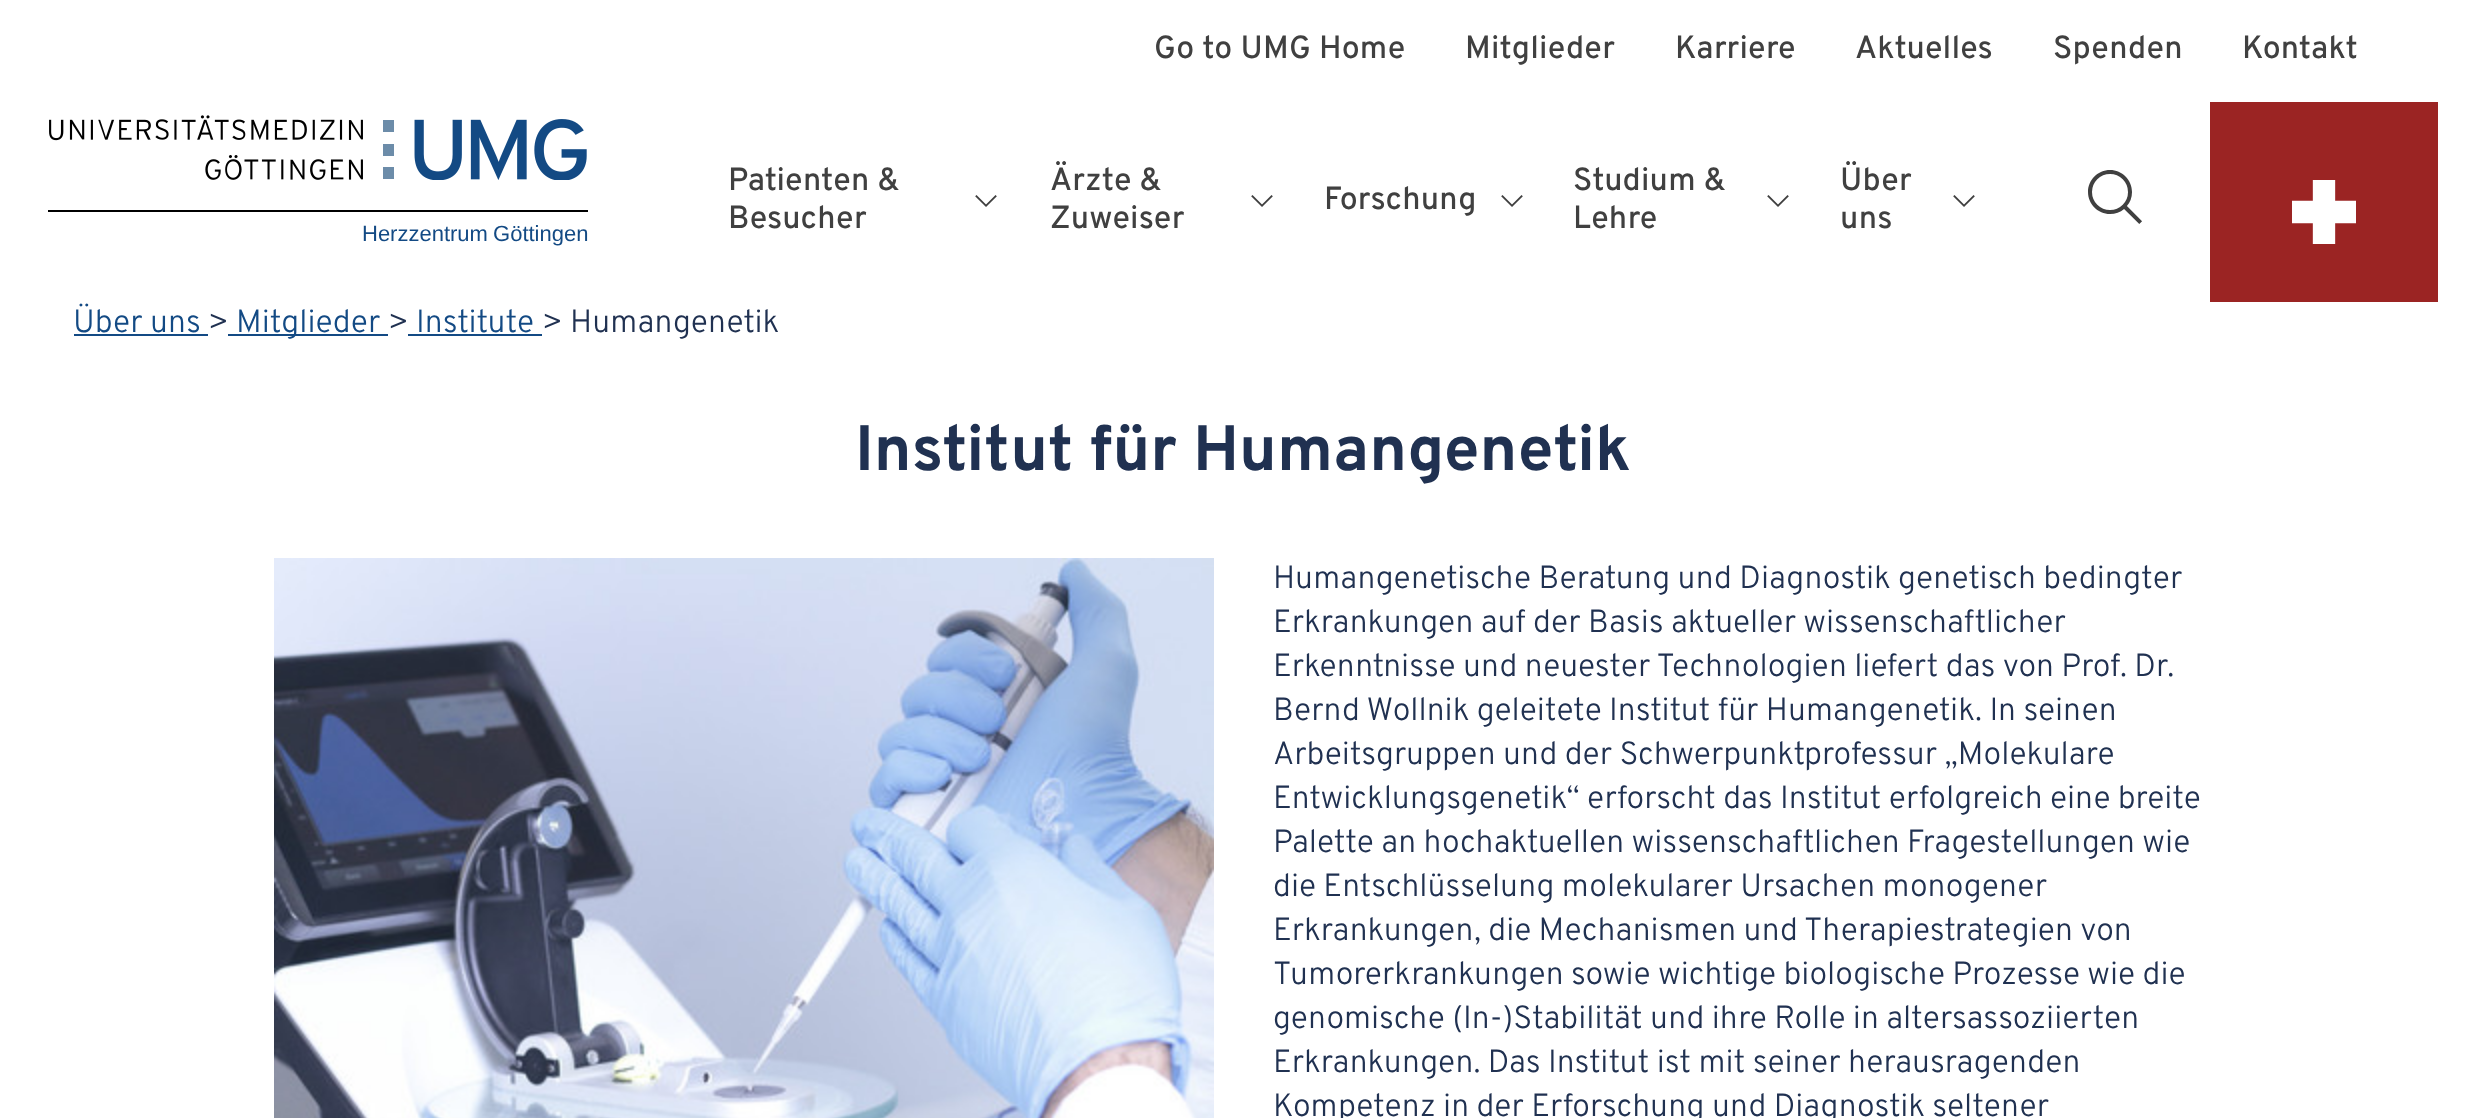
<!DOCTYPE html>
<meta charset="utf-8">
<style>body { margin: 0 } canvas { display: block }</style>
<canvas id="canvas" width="2485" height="1118"></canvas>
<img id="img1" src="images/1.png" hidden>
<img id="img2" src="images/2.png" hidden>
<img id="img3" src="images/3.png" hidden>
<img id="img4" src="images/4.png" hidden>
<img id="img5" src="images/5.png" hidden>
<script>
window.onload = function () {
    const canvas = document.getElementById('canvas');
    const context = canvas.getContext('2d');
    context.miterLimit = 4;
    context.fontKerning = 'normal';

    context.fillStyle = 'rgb(255, 255, 255)';
    context.fillRect(0, 0, 2485, 1118);
    context.drawImage(document.getElementById('img1'), 975, 195, 22, 12);
    context.drawImage(document.getElementById('img1'), 1251, 195, 22, 12);
    context.drawImage(document.getElementById('img1'), 1501, 195, 22, 12);
    context.drawImage(document.getElementById('img1'), 1767, 195, 22, 12);
    context.drawImage(document.getElementById('img1'), 1953, 195, 22, 12);
    context.drawImage(document.getElementById('img2'), 2088, 170, 54, 54);
    context.fillStyle = 'rgb(155, 36, 35)';
    context.fillRect(2210, 102, 228, 200);
    context.drawImage(document.getElementById('img3'), 2292, 180, 64, 64);
    context.drawImage(document.getElementById('img4'), 49, 115, 538, 65);
    context.fillStyle = 'rgb(0, 0, 0)';
    context.fillRect(48, 210, 540, 2);
    context.fillStyle = 'rgb(19, 74, 132)';
    context.fillRect(74, 334, 134, 2);
    context.fillRect(228, 334, 160, 2);
    context.fillRect(408, 334, 134, 2);
    context.drawImage(document.getElementById('img5'), 274, 558, 940, 560);
    context.letterSpacing = '0.2px';
    context.font = '500 32px Overpass';
    context.fillStyle = 'rgb(64, 64, 64)';
    context.fillText('Go to UMG Home', 1154, 58);
    context.fillText('Mitglieder', 1465, 58);
    context.fillText('Karriere', 1675, 58);
    context.fillText('Aktuelles', 1855, 58);
    context.fillText('Spenden', 2053, 58);
    context.fillText('Kontakt', 2242, 58);
    context.fillText('Patienten &', 728, 190);
    context.fillText('Besucher', 728, 228);
    context.fillText('Ärzte &', 1050, 190);
    context.fillText('Zuweiser', 1050, 228);
    context.fillText('Forschung', 1324, 209);
    context.fillText('Studium &', 1573, 190);
    context.fillText('Lehre', 1573, 228);
    context.fillText('Über', 1840, 190);
    context.fillText('uns', 1840, 228);
    context.letterSpacing = '0px';
    context.wordSpacing = '-1px';
    context.font = '22px Liberation Sans';
    context.fillStyle = 'rgb(19, 74, 132)';
    context.fillText('Herzzentrum Göttingen', 362, 241);
    context.wordSpacing = '0px';
    context.font = '300 32px Overpass';
    context.fillText('Über uns', 73, 332);
    context.fillStyle = 'rgb(32, 49, 81)';
    context.fillText('>', 208, 332);
    context.fillStyle = 'rgb(19, 74, 132)';
    context.fillText('Mitglieder', 236, 332);
    context.fillStyle = 'rgb(32, 49, 81)';
    context.fillText('>', 388, 332);
    context.fillStyle = 'rgb(19, 74, 132)';
    context.fillText('Institute', 416, 332);
    context.fillStyle = 'rgb(32, 49, 81)';
    context.fillText('> Humangenetik', 542, 332);
    context.font = 'bold 64px Overpass';
    context.fillText('Institut für Humangenetik', 855, 470);
    context.font = '300 32px Overpass';
    context.fillText('Humangenetische Beratung und Diagnostik genetisch bedingter', 1273, 588);
    context.fillText('Erkrankungen auf der Basis aktueller wissenschaftlicher', 1273, 632);
    context.fillText('Erkenntnisse und neuester Technologien liefert das von Prof. Dr.', 1273, 676);
    context.fillText('Bernd Wollnik geleitete Institut für Humangenetik. In seinen', 1273, 720);
    context.fillText('Arbeitsgruppen und der Schwerpunktprofessur „Molekulare', 1273, 764);
    context.fillText('Entwicklungsgenetik“ erforscht das Institut erfolgreich eine breite', 1273, 808);
    context.fillText('Palette an hochaktuellen wissenschaftlichen Fragestellungen wie', 1273, 852);
    context.fillText('die Entschlüsselung molekularer Ursachen monogener', 1273, 896);
    context.fillText('Erkrankungen, die Mechanismen und Therapiestrategien von', 1273, 940);
    context.fillText('Tumorerkrankungen sowie wichtige biologische Prozesse wie die', 1273, 984);
    context.fillText('genomische (In-)Stabilität und ihre Rolle in altersassoziierten', 1273, 1028);
    context.fillText('Erkrankungen. Das Institut ist mit seiner herausragenden', 1273, 1072);
    context.fillText('Kompetenz in der Erforschung und Diagnostik seltener', 1273, 1116);
};
</script>
